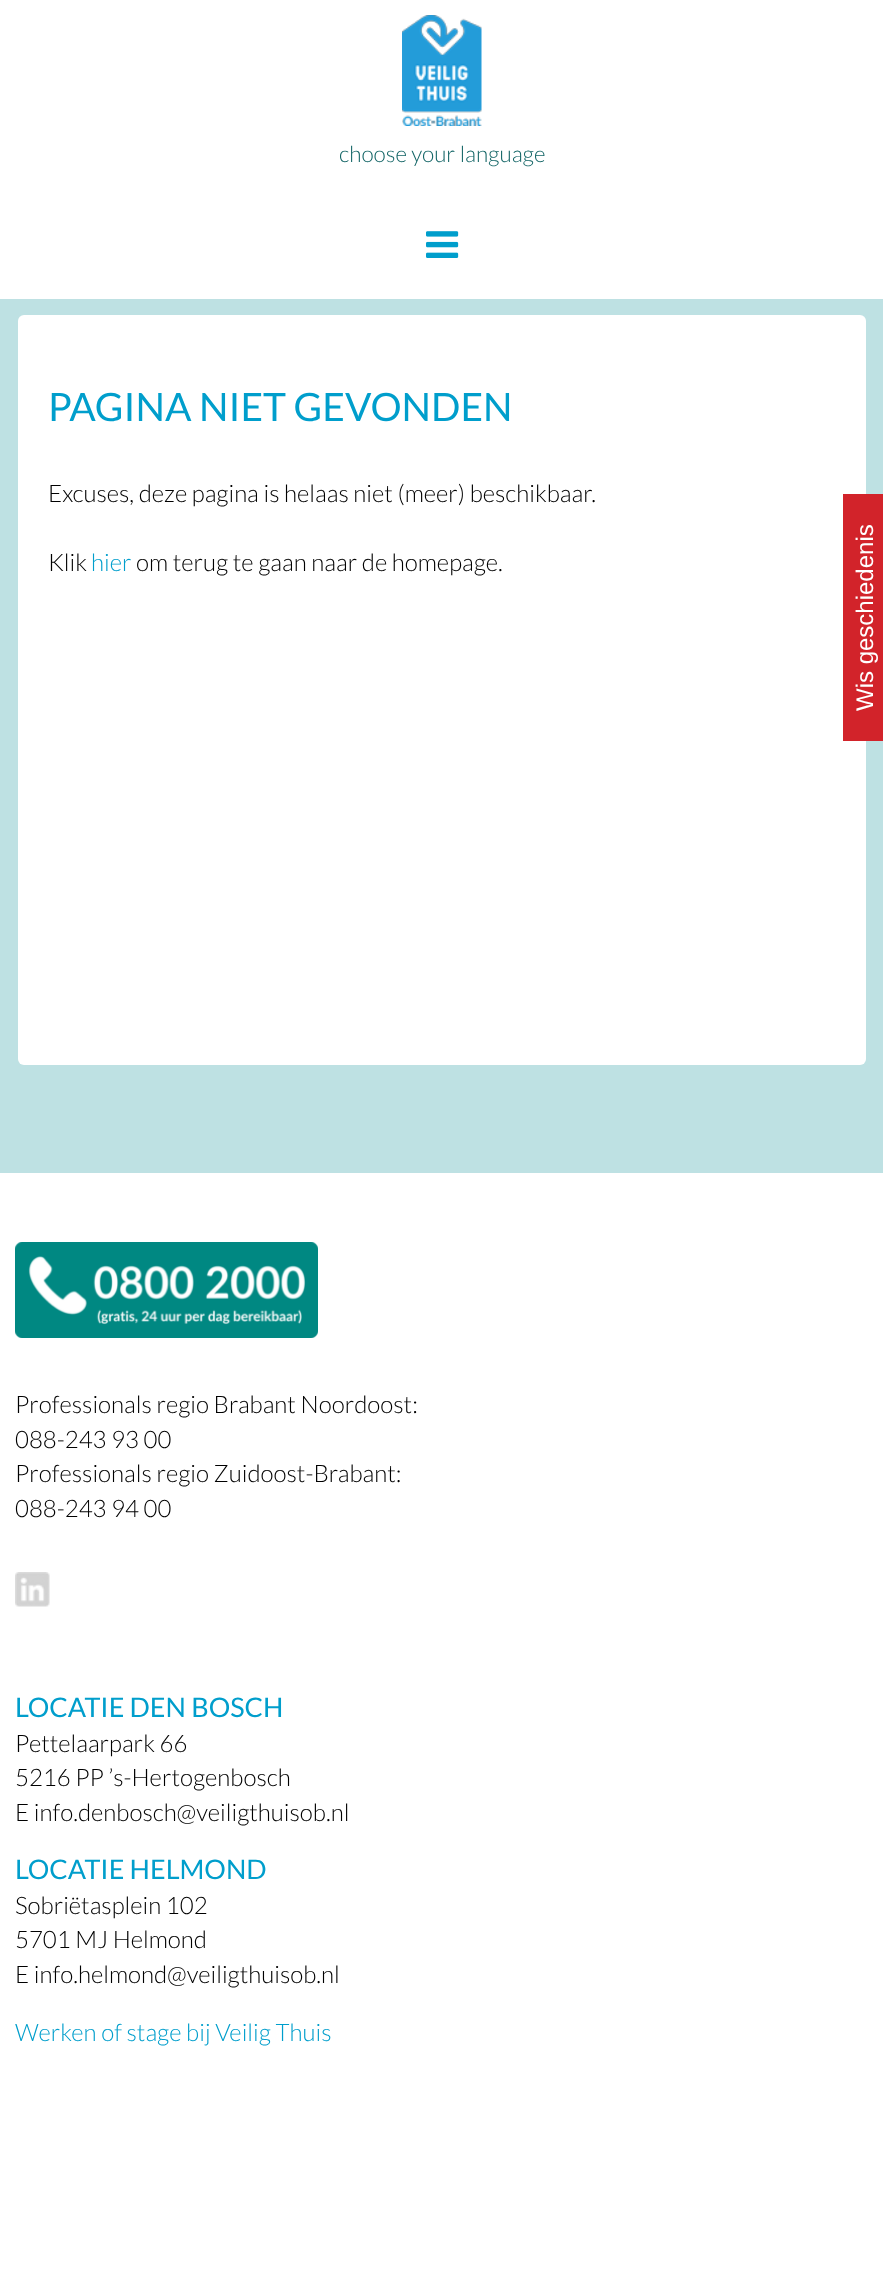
<!DOCTYPE html>
<meta charset="utf-8">
<style>body { margin: 0 } canvas { display: block }</style>
<canvas id="canvas" width="883" height="2276"></canvas>
<img id="img1" src="images/1.png" hidden>
<img id="img2" src="images/2.png" hidden>
<img id="img3" src="images/3.png" hidden>
<img id="img4" src="images/4.png" hidden>
<script>
window.onload = function () {
    const canvas = document.getElementById('canvas');
    const context = canvas.getContext('2d');
    context.miterLimit = 4;
    context.fontKerning = 'normal';

    context.fillStyle = 'rgb(255, 255, 255)';
    context.fillRect(0, 0, 883, 2276);
    context.fillStyle = 'rgb(190, 225, 227)';
    context.fillRect(0, 299, 883, 874);
    context.fillStyle = 'rgb(255, 255, 255)';
    context.beginPath();
    context.roundRect(18, 315, 848, 750, 6);
    context.fill();
    context.drawImage(document.getElementById('img1'), 402, 15, 80, 111);
    context.drawImage(document.getElementById('img2'), 426, 231, 33, 27);
    context.fillStyle = 'rgb(210, 35, 42)';
    context.fillRect(843, 494, 40, 247);
    context.drawImage(document.getElementById('img3'), 15, 1242, 303, 96);
    context.drawImage(document.getElementById('img4'), 15, 1572, 35, 35);
    context.font = '39px Lato';
    context.fillStyle = 'rgb(0, 158, 204)';
    context.fillText('PAGINA NIET GEVONDEN', 48, 421);
    context.font = '300 24px Lato';
    context.fillStyle = 'rgb(0, 0, 0)';
    context.fillText('Excuses, deze pagina is helaas niet (meer) beschikbaar.', 48, 502);
    context.fillText('Klik', 48, 571);
    context.fillStyle = 'rgb(0, 158, 204)';
    context.fillText('hier', 91, 571);
    context.fillStyle = 'rgb(0, 0, 0)';
    context.fillText('om terug te gaan naar de homepage.', 136, 571);
    context.font = '300 22.5px Lato';
    context.fillStyle = 'rgb(19, 101, 102)';
    context.fillText('choose your language', 339, 162);
    context.font = '24px Liberation Sans';
    context.fillStyle = 'rgb(255, 255, 255)';
    context.save();
    context.translate(873, 711);
    context.rotate(-90 * Math.PI / 180);
    context.fillText('Wis geschiedenis', 0, 0);
    context.restore();
    context.font = '300 24px Lato';
    context.fillStyle = 'rgb(0, 0, 0)';
    context.fillText('Professionals regio Brabant Noordoost:', 15, 1413);
    context.fillText('088-243 93 00', 15, 1448);
    context.fillText('Professionals regio Zuidoost-Brabant:', 15, 1482);
    context.fillText('088-243 94 00', 15, 1517);
    context.font = '27px Lato';
    context.fillStyle = 'rgb(0, 158, 204)';
    context.fillText('LOCATIE DEN BOSCH', 15, 1717);
    context.font = '300 24px Lato';
    context.fillStyle = 'rgb(0, 0, 0)';
    context.fillText('Pettelaarpark 66', 15, 1752);
    context.fillText('5216 PP ’s-Hertogenbosch', 15, 1786);
    context.fillText('E info.denbosch@veiligthuisob.nl', 15, 1821);
    context.font = '27px Lato';
    context.fillStyle = 'rgb(0, 158, 204)';
    context.fillText('LOCATIE HELMOND', 15, 1879);
    context.font = '300 24px Lato';
    context.fillStyle = 'rgb(0, 0, 0)';
    context.fillText('Sobriëtasplein 102', 15, 1914);
    context.fillText('5701 MJ Helmond', 15, 1948);
    context.fillText('E info.helmond@veiligthuisob.nl', 15, 1983);
    context.fillStyle = 'rgb(0, 158, 204)';
    context.fillText('Werken of stage bij Veilig Thuis', 15, 2041);
};
</script>
